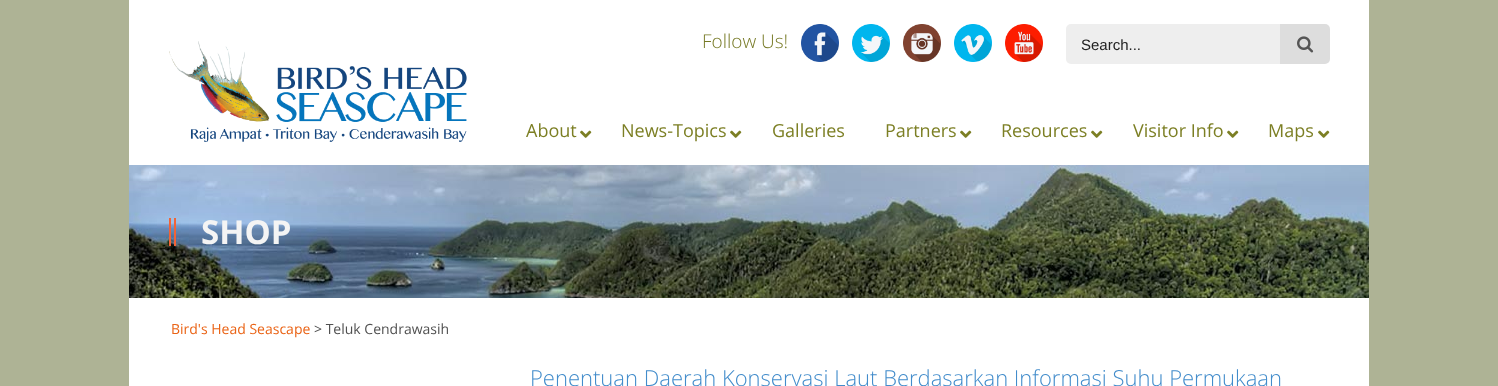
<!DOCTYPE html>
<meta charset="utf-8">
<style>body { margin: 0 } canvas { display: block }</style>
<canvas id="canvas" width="1498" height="386"></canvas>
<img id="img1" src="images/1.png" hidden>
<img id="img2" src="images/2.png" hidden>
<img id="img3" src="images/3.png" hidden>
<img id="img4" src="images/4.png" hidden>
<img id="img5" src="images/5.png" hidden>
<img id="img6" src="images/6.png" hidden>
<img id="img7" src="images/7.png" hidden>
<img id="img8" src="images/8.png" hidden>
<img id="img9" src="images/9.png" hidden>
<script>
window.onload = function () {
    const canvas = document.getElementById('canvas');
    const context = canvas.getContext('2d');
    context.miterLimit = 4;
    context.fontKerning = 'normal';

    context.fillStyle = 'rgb(174, 179, 149)';
    context.fillRect(0, 0, 1498, 386);
    context.fillStyle = 'rgb(255, 255, 255)';
    context.fillRect(129, 0, 1240, 165);
    context.drawImage(document.getElementById('img1'), 801, 24, 38, 38);
    context.drawImage(document.getElementById('img2'), 852, 24, 38, 38);
    context.drawImage(document.getElementById('img3'), 903, 24, 38, 38);
    context.drawImage(document.getElementById('img4'), 954, 24, 38, 38);
    context.drawImage(document.getElementById('img5'), 1005, 24, 38, 38);
    context.fillStyle = 'rgb(238, 238, 238)';
    context.beginPath();
    context.roundRect(1066, 24, 217, 40, [5, 0, 0, 5]);
    context.fill();
    context.fillStyle = 'rgb(221, 221, 221)';
    context.beginPath();
    context.roundRect(1280, 24, 50, 40, [0, 5, 5, 0]);
    context.fill();
    context.drawImage(document.getElementById('img6'), 1297, 36, 17, 17);
    context.drawImage(document.getElementById('img7'), 169, 41, 298, 101);
    context.drawImage(document.getElementById('img8'), 580, 130, 12, 8);
    context.drawImage(document.getElementById('img8'), 730, 130, 12, 8);
    context.drawImage(document.getElementById('img8'), 960, 130, 12, 8);
    context.drawImage(document.getElementById('img8'), 1091, 130, 12, 8);
    context.drawImage(document.getElementById('img8'), 1227, 130, 12, 8);
    context.drawImage(document.getElementById('img8'), 1318, 130, 12, 8);
    context.drawImage(document.getElementById('img9'), 129, 165, 1240, 133);
    context.fillStyle = 'rgb(241, 99, 55)';
    context.fillRect(169, 218, 2, 28);
    context.fillRect(174, 218, 2, 28);
    context.fillStyle = 'rgb(255, 255, 255)';
    context.fillRect(129, 298, 1240, 88);
    context.font = '300 19px Open Sans';
    context.fillStyle = 'rgb(118, 121, 36)';
    context.fillText('Follow Us!', 702, 48);
    context.font = '15px Liberation Sans';
    context.fillStyle = 'rgb(34, 34, 34)';
    context.fillText('Search...', 1081, 50);
    context.font = '18px Open Sans';
    context.fillStyle = 'rgb(124, 127, 36)';
    context.fillText('About', 526, 137);
    context.fillText('News-Topics', 621, 137);
    context.fillText('Galleries', 772, 137);
    context.fillText('Partners', 885, 137);
    context.fillText('Resources', 1001, 137);
    context.fillText('Visitor Info', 1133, 137);
    context.fillText('Maps', 1268, 137);
    context.font = 'bold 33px Open Sans';
    context.fillStyle = 'rgb(244, 244, 244)';
    context.fillText('SHOP', 201, 244);
    context.font = '14px Open Sans';
    context.fillStyle = 'rgb(234, 99, 21)';
    context.fillText('Bird\'s Head Seascape', 171, 334);
    context.fillStyle = 'rgb(80, 80, 80)';
    context.fillText('> Teluk Cendrawasih', 314, 334);
    context.font = '300 22px Open Sans';
    context.fillStyle = 'rgb(66, 140, 203)';
    context.fillText('Penentuan Daerah Konservasi Laut Berdasarkan Informasi Suhu Permukaan', 530, 386);
};
</script>
